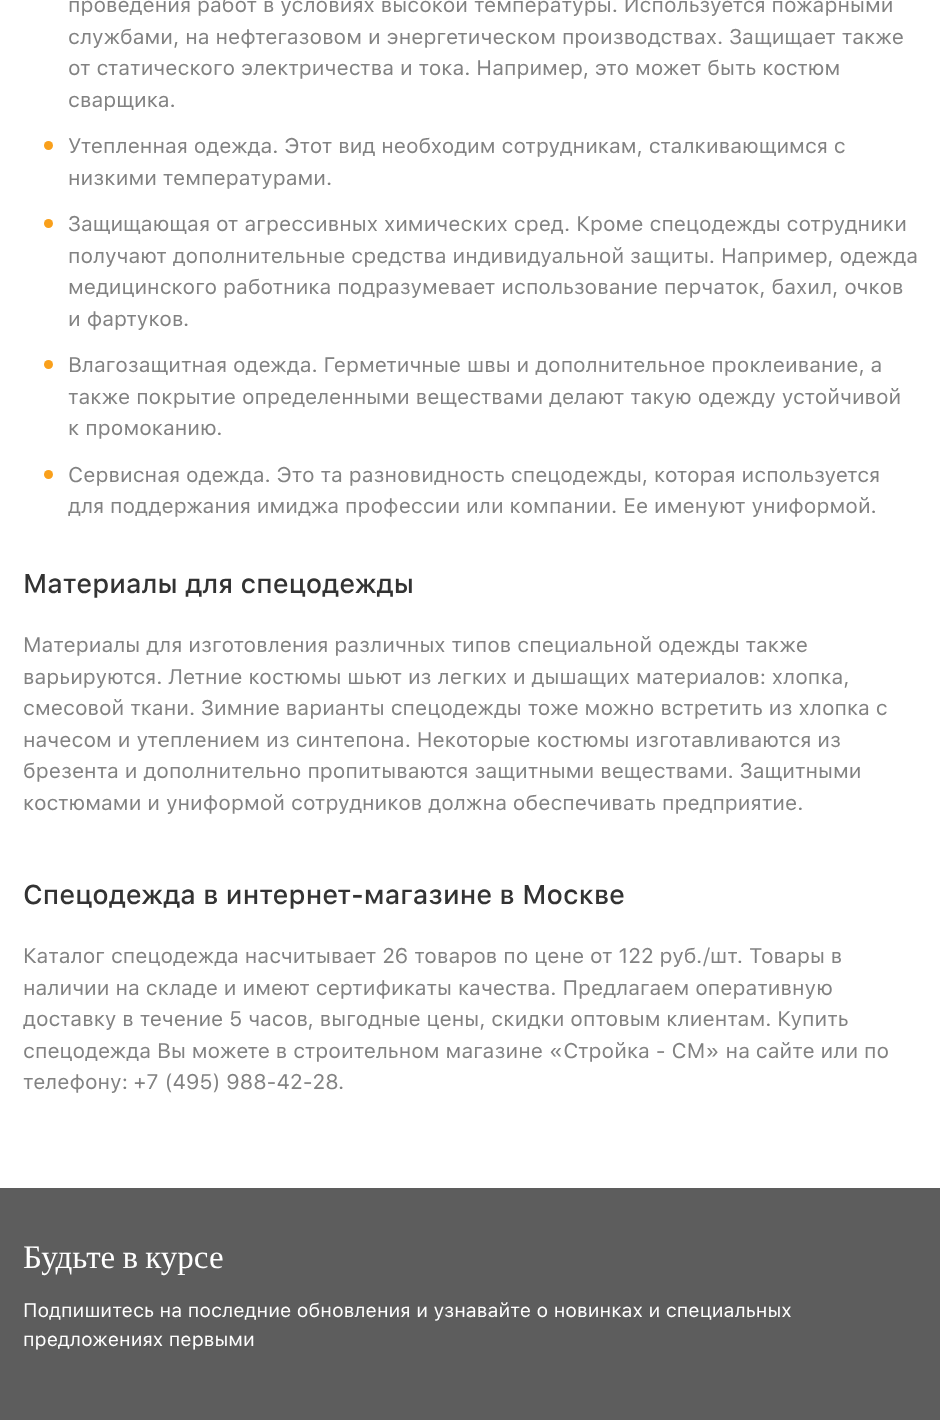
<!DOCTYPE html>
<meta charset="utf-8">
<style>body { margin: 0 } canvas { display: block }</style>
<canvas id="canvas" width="940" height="1420"></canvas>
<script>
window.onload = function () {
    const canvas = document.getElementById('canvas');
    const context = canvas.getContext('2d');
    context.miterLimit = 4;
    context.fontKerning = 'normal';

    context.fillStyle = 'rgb(255, 255, 255)';
    context.fillRect(0, 0, 940, 1420);
    context.fillStyle = 'rgb(249, 160, 27)';
    context.beginPath();
    context.arc(48.5, 145.5, 4.5, 0, 2 * Math.PI);
    context.fill();
    context.beginPath();
    context.arc(48.5, 223.5, 4.5, 0, 2 * Math.PI);
    context.fill();
    context.beginPath();
    context.arc(48.5, 364.5, 4.5, 0, 2 * Math.PI);
    context.fill();
    context.beginPath();
    context.arc(48.5, 474.5, 4.5, 0, 2 * Math.PI);
    context.fill();
    context.fillStyle = 'rgb(93, 93, 93)';
    context.fillRect(0, 1188, 940, 232);
    context.font = '21px SF Pro Text';
    context.fillStyle = 'rgb(130, 130, 130)';
    context.fillText('проведения работ в условиях высокой температуры. Используется пожарными', 68, 12);
    context.fillText('службами, на нефтегазовом и энергетическом производствах. Защищает также', 68, 44);
    context.fillText('от статического электричества и тока. Например, это может быть костюм', 68, 75);
    context.fillText('сварщика.', 68, 107);
    context.fillText('Утепленная одежда. Этот вид необходим сотрудникам, сталкивающимся с', 68, 153);
    context.fillText('низкими температурами.', 68, 185);
    context.fillText('Защищающая от агрессивных химических сред. Кроме спецодежды сотрудники', 68, 231);
    context.fillText('получают дополнительные средства индивидуальной защиты. Например, одежда', 68, 263);
    context.fillText('медицинского работника подразумевает использование перчаток, бахил, очков', 68, 294);
    context.fillText('и фартуков.', 68, 326);
    context.fillText('Влагозащитная одежда. Герметичные швы и дополнительное проклеивание, а', 68, 372);
    context.fillText('также покрытие определенными веществами делают такую одежду устойчивой', 68, 404);
    context.fillText('к промоканию.', 68, 435);
    context.fillText('Сервисная одежда. Это та разновидность спецодежды, которая используется', 68, 482);
    context.fillText('для поддержания имиджа профессии или компании. Ее именуют униформой.', 68, 513);
    context.font = '500 27px SF Pro Text';
    context.fillStyle = 'rgb(51, 51, 51)';
    context.fillText('Материалы для спецодежды', 23, 593);
    context.font = '21px SF Pro Text';
    context.fillStyle = 'rgb(130, 130, 130)';
    context.fillText('Материалы для изготовления различных типов специальной одежды также', 23, 652);
    context.fillText('варьируются. Летние костюмы шьют из легких и дышащих материалов: хлопка,', 23, 684);
    context.fillText('смесовой ткани. Зимние варианты спецодежды тоже можно встретить из хлопка с', 23, 715);
    context.fillText('начесом и утеплением из синтепона. Некоторые костюмы изготавливаются из', 23, 747);
    context.fillText('брезента и дополнительно пропитываются защитными веществами. Защитными', 23, 778);
    context.fillText('костюмами и униформой сотрудников должна обеспечивать предприятие.', 23, 810);
    context.font = '500 27px SF Pro Text';
    context.fillStyle = 'rgb(51, 51, 51)';
    context.fillText('Спецодежда в интернет-магазине в Москве', 23, 904);
    context.font = '21px SF Pro Text';
    context.fillStyle = 'rgb(130, 130, 130)';
    context.fillText('Каталог спецодежда насчитывает 26 товаров по цене от 122 руб./шт. Товары в', 23, 963);
    context.fillText('наличии на складе и имеют сертификаты качества. Предлагаем оперативную', 23, 995);
    context.fillText('доставку в течение 5 часов, выгодные цены, скидки оптовым клиентам. Купить', 23, 1026);
    context.fillText('спецодежда Вы можете в строительном магазине «Стройка - СМ» на сайте или по', 23, 1058);
    context.fillText('телефону:', 23, 1089);
    context.fillText('+7 (495) 988-42-28', 133, 1089);
    context.fillText('.', 338, 1089);
    context.wordSpacing = '-1px';
    context.font = '33px Liberation Serif';
    context.fillStyle = 'rgb(255, 255, 255)';
    context.fillText('Будьте в курсе', 23, 1268);
    context.wordSpacing = '0px';
    context.font = '19.5px SF Pro Text';
    context.fillText('Подпишитесь на последние обновления и узнавайте о новинках и специальных', 23, 1317);
    context.fillText('предложениях первыми', 23, 1346);
};
</script>
